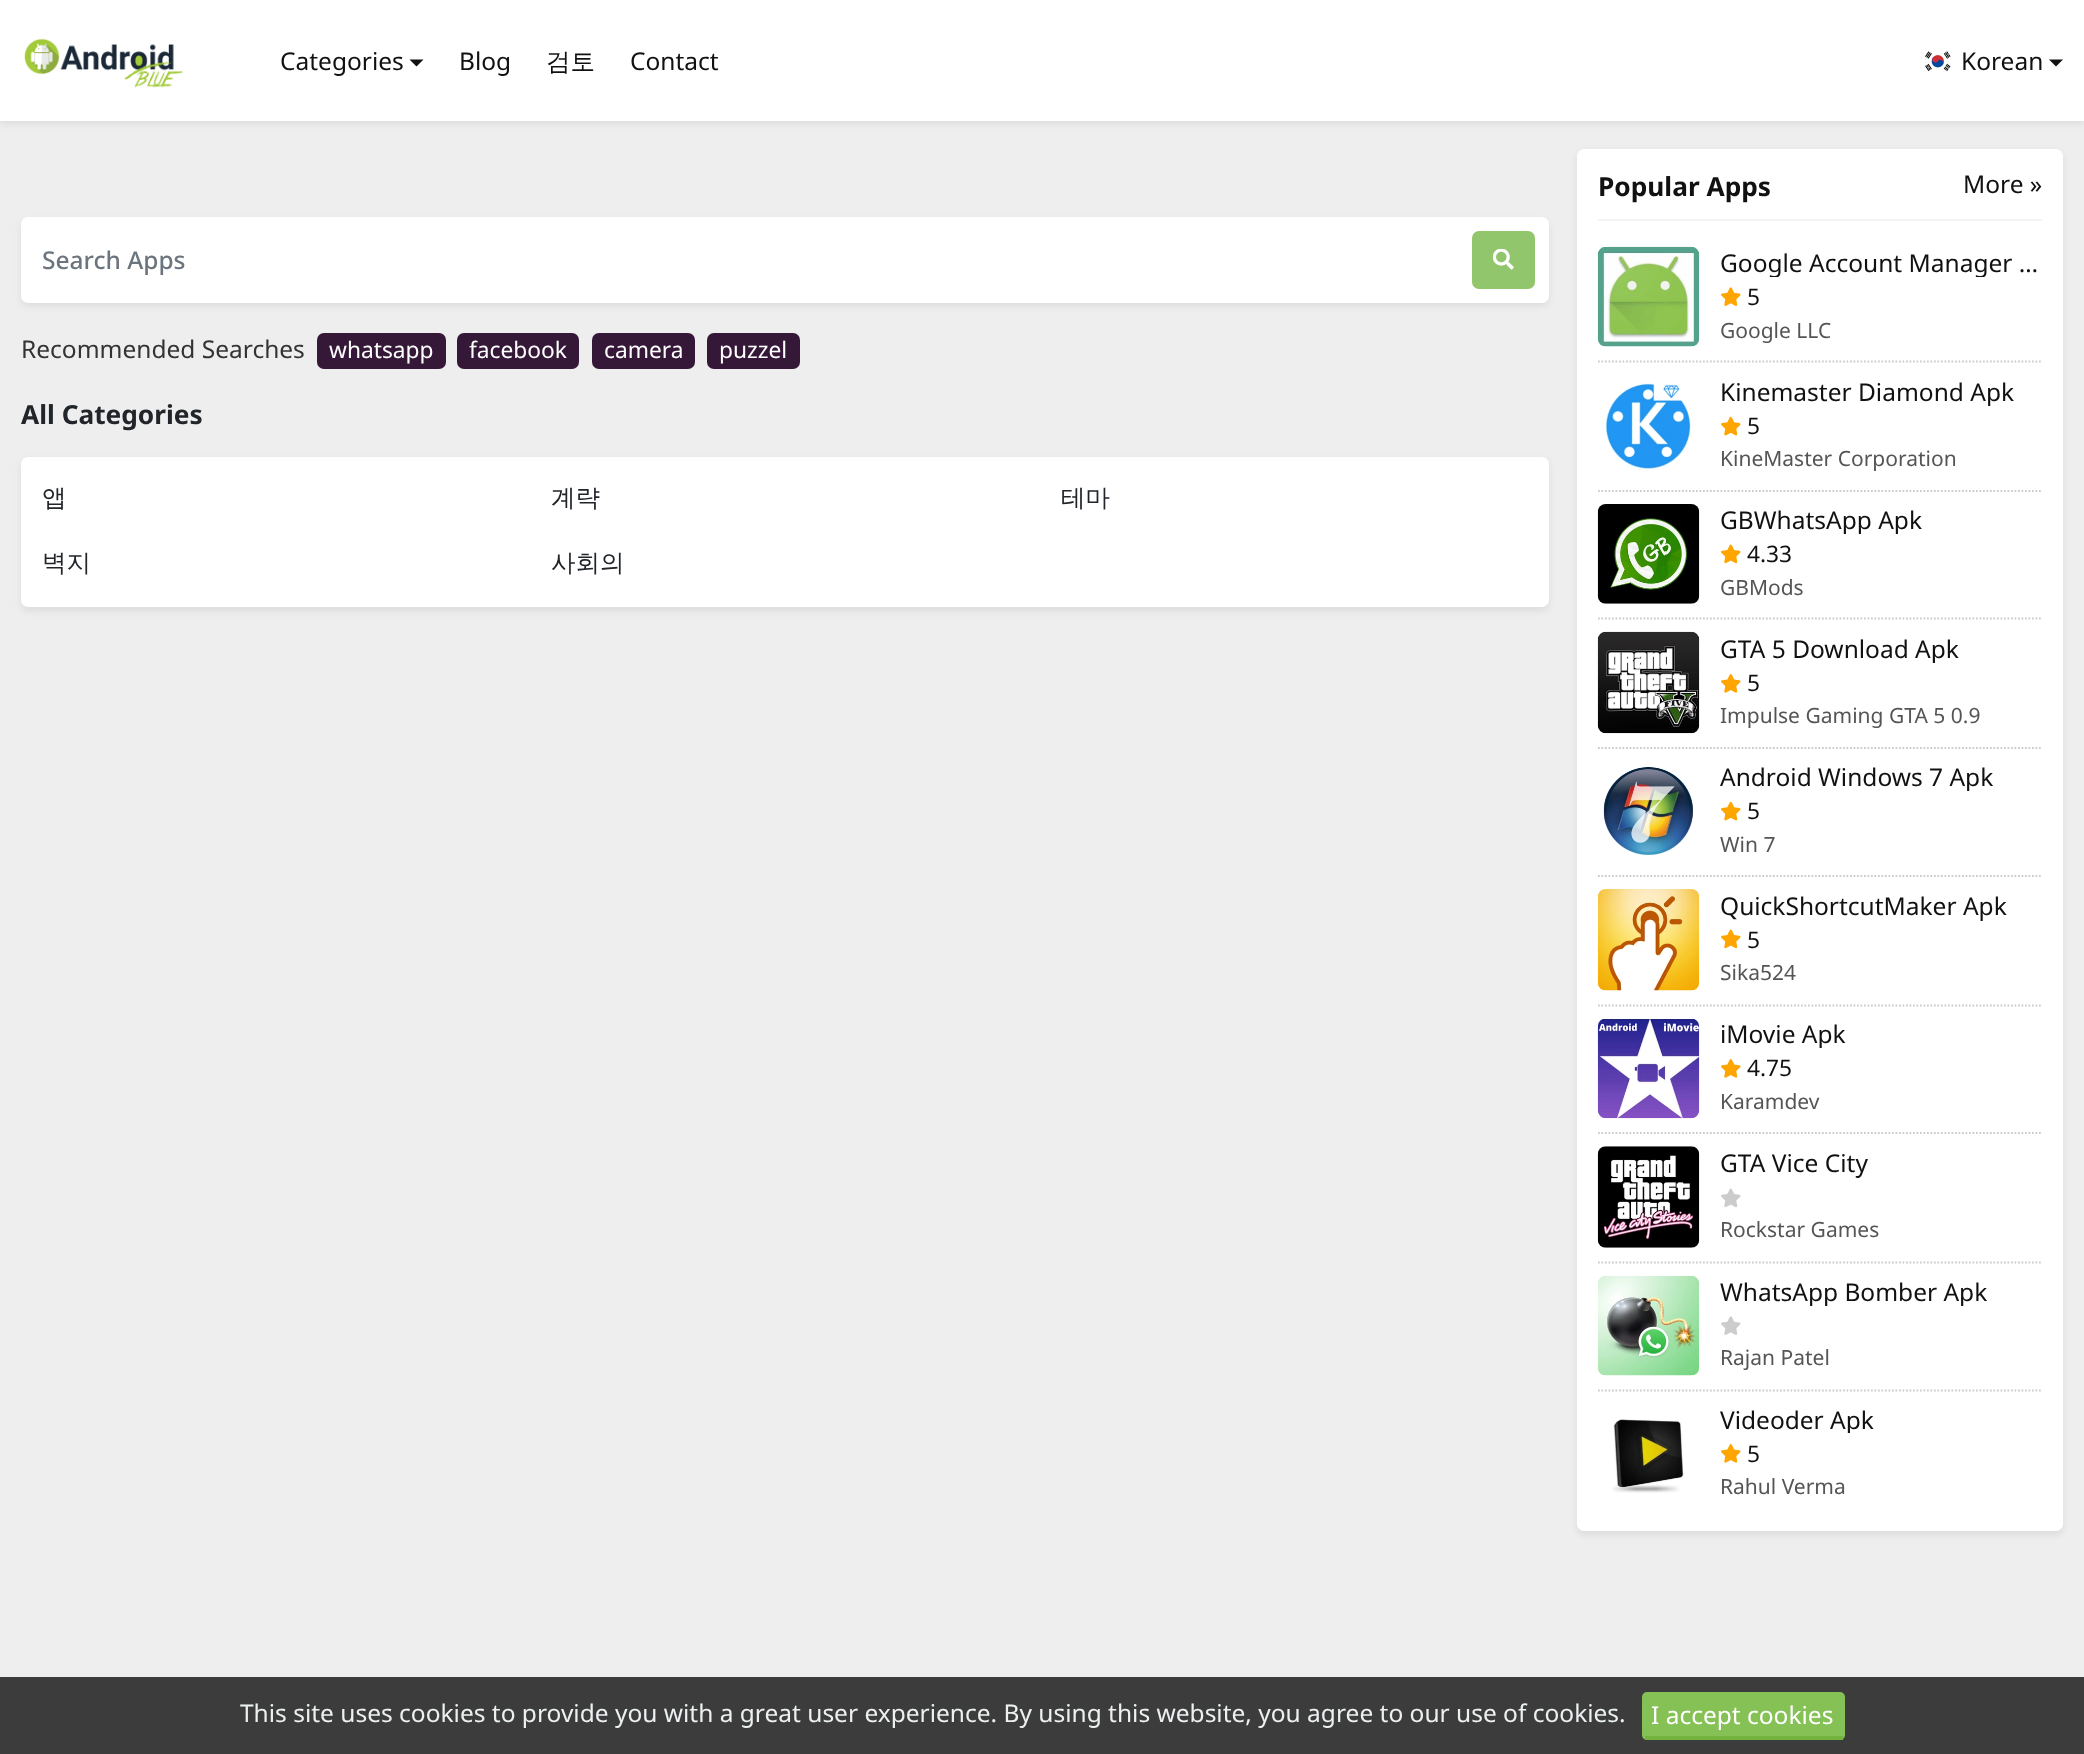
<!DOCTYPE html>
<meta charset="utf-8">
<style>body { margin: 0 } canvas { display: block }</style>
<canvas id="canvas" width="2084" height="1754"></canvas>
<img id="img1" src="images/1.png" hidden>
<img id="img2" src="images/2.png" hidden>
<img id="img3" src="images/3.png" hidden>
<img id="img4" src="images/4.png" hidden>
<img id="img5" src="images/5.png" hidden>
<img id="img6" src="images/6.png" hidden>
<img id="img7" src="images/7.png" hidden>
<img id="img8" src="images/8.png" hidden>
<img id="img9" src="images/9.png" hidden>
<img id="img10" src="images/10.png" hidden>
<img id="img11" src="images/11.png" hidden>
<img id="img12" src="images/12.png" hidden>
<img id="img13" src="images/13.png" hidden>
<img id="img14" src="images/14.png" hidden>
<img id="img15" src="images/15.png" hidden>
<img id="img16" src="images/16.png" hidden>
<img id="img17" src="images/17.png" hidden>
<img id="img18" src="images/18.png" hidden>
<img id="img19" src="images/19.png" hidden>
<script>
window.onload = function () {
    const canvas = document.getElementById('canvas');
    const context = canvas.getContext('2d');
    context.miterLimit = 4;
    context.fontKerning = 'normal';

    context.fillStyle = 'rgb(238, 238, 238)';
    context.fillRect(0, 0, 2084, 1754);
    context.fillStyle = 'rgba(0, 0, 0, 0.07)';
    context.filter = 'blur(3.5px)';
    context.beginPath();
    context.rect(0, 4, 2084, 120);
    context.fill();
    context.filter = 'none';
    context.fillStyle = 'rgb(255, 255, 255)';
    context.fillRect(0, 0, 2084, 121);
    context.drawImage(document.getElementById('img1'), 24, 38, 159, 50);
    context.fillStyle = 'rgb(17, 17, 17)';
    context.beginPath();
    context.moveTo(409.5, 59.5);
    context.lineTo(423.5, 59.5);
    context.lineTo(416.5, 66.5);
    context.closePath();
    context.fill();
    context.drawImage(document.getElementById('img2'), 1925, 51, 26, 21);
    context.beginPath();
    context.moveTo(2049, 59.5);
    context.lineTo(2063, 59.5);
    context.lineTo(2056, 66.5);
    context.closePath();
    context.fill();
    context.fillStyle = 'rgba(0, 0, 0, 0.07)';
    context.filter = 'blur(3.5px)';
    context.beginPath();
    context.roundRect(21, 221, 1528, 85, 7);
    context.fill();
    context.filter = 'none';
    context.fillStyle = 'rgb(255, 255, 255)';
    context.beginPath();
    context.roundRect(21, 217, 1528, 86, 7);
    context.fill();
    context.fillStyle = 'rgb(146, 198, 108)';
    context.beginPath();
    context.roundRect(1472, 231, 63, 58, 7);
    context.fill();
    context.drawImage(document.getElementById('img3'), 1493, 249, 21, 21);
    context.fillStyle = 'rgb(53, 24, 55)';
    context.beginPath();
    context.roundRect(317, 333, 129, 36, 7);
    context.fill();
    context.beginPath();
    context.roundRect(457, 333, 122, 36, 7);
    context.fill();
    context.beginPath();
    context.roundRect(592, 333, 103, 36, 7);
    context.fill();
    context.beginPath();
    context.roundRect(707, 333, 93, 36, 7);
    context.fill();
    context.fillStyle = 'rgba(0, 0, 0, 0.07)';
    context.filter = 'blur(3.5px)';
    context.beginPath();
    context.roundRect(21, 460, 1528, 151, 7);
    context.fill();
    context.filter = 'none';
    context.fillStyle = 'rgb(255, 255, 255)';
    context.beginPath();
    context.roundRect(21, 457, 1528, 150, 7);
    context.fill();
    context.fillStyle = 'rgba(0, 0, 0, 0.07)';
    context.filter = 'blur(3.5px)';
    context.beginPath();
    context.roundRect(1577, 152, 486, 1383, 7);
    context.fill();
    context.filter = 'none';
    context.fillStyle = 'rgb(255, 255, 255)';
    context.beginPath();
    context.roundRect(1577, 149, 486, 1382, 7);
    context.fill();
    context.fillStyle = 'rgb(244, 244, 244)';
    context.fillRect(1598, 219, 444, 2);
    context.drawImage(document.getElementById('img4'), 1597, 246, 103, 101);
    context.drawImage(document.getElementById('img5'), 1721, 287, 20, 19);
    context.beginPath();
    context.moveTo(1598, 361.5);
    context.lineTo(2042, 361.5);
    context.strokeStyle = 'rgb(204, 204, 204)';
    context.lineWidth = 1.8;
    context.setLineDash([1.75, 1.75]);
    context.stroke();
    context.drawImage(document.getElementById('img6'), 1605, 383, 86, 87);
    context.drawImage(document.getElementById('img7'), 1721, 416, 20, 20);
    context.beginPath();
    context.moveTo(1598, 491);
    context.lineTo(2042, 491);
    context.stroke();
    context.drawImage(document.getElementById('img8'), 1597, 504, 103, 100);
    context.drawImage(document.getElementById('img9'), 1721, 544, 20, 20);
    context.beginPath();
    context.moveTo(1598, 618.5);
    context.lineTo(2042, 618.5);
    context.stroke();
    context.drawImage(document.getElementById('img10'), 1597, 631, 103, 103);
    context.drawImage(document.getElementById('img11'), 1721, 674, 20, 19);
    context.beginPath();
    context.moveTo(1598, 748);
    context.lineTo(2042, 748);
    context.stroke();
    context.drawImage(document.getElementById('img12'), 1603, 767, 91, 89);
    context.drawImage(document.getElementById('img7'), 1721, 801, 20, 20);
    context.beginPath();
    context.moveTo(1598, 876);
    context.lineTo(2042, 876);
    context.stroke();
    context.drawImage(document.getElementById('img13'), 1597, 889, 103, 102);
    context.drawImage(document.getElementById('img9'), 1721, 929, 20, 20);
    context.beginPath();
    context.moveTo(1598, 1005.5);
    context.lineTo(2042, 1005.5);
    context.stroke();
    context.drawImage(document.getElementById('img14'), 1597, 1019, 103, 100);
    context.drawImage(document.getElementById('img11'), 1721, 1059, 20, 19);
    context.beginPath();
    context.moveTo(1598, 1133);
    context.lineTo(2042, 1133);
    context.stroke();
    context.drawImage(document.getElementById('img15'), 1597, 1146, 103, 102);
    context.drawImage(document.getElementById('img16'), 1721, 1188, 20, 20);
    context.beginPath();
    context.moveTo(1598, 1262.5);
    context.lineTo(2042, 1262.5);
    context.stroke();
    context.drawImage(document.getElementById('img17'), 1597, 1275, 103, 101);
    context.drawImage(document.getElementById('img18'), 1721, 1316, 20, 19);
    context.beginPath();
    context.moveTo(1598, 1390.5);
    context.lineTo(2042, 1390.5);
    context.stroke();
    context.drawImage(document.getElementById('img19'), 1612, 1419, 72, 74);
    context.drawImage(document.getElementById('img11'), 1721, 1444, 20, 19);
    context.fillStyle = 'rgb(60, 60, 60)';
    context.fillRect(0, 1677, 2084, 77);
    context.fillStyle = 'rgb(133, 193, 84)';
    context.beginPath();
    context.roundRect(1642, 1692, 203, 48, 5);
    context.fill();
    context.fillStyle = 'rgb(115, 179, 62)';
    context.fillRect(1645, 1736, 198, 4);
    context.font = '24.5px Noto Sans';
    context.fillStyle = 'rgb(17, 17, 17)';
    context.fillText('Categories', 280, 70);
    context.fillText('Blog', 459, 70);
    context.font = '500 24.5px WenQuanYi Zen Hei';
    context.fillText('검토', 546, 70);
    context.font = '24.5px Noto Sans';
    context.fillText('Contact', 630, 70);
    context.fillText('Korean', 1961, 70);
    context.font = '500 24.5px Noto Sans';
    context.fillStyle = 'rgb(108, 117, 125)';
    context.fillText('Search Apps', 42, 269);
    context.font = '24.5px Noto Sans';
    context.fillStyle = 'rgb(51, 51, 51)';
    context.fillText('Recommended Searches', 21, 358);
    context.font = '22.75px Noto Sans';
    context.fillStyle = 'rgb(255, 255, 255)';
    context.fillText('whatsapp', 329, 358);
    context.fillText('facebook', 469, 358);
    context.fillText('camera', 604, 358);
    context.fillText('puzzel', 719, 358);
    context.font = 'bold 26.25px Noto Sans';
    context.fillStyle = 'rgb(33, 37, 41)';
    context.fillText('All Categories', 21, 424);
    context.font = '500 24.5px WenQuanYi Zen Hei';
    context.fillText('앱', 42, 506);
    context.fillText('계략', 551, 506);
    context.fillText('테마', 1061, 506);
    context.fillText('벽지', 42, 571);
    context.fillText('사회의', 551, 571);
    context.font = 'bold 26.25px Noto Sans';
    context.fillStyle = 'rgb(17, 17, 17)';
    context.fillText('Popular Apps', 1598, 196);
    context.font = '24.5px Noto Sans';
    context.fillText('More »', 1963, 193);
    context.save();
    context.beginPath();
    context.rect(1720, 247, 322, 30);
    context.clip();
    context.fillText('Google Account Manager …', 1720, 272);
    context.restore();
    context.font = '22.75px Noto Sans';
    context.fillText('5', 1747, 305);
    context.font = '21px Noto Sans';
    context.fillStyle = 'rgb(85, 85, 85)';
    context.fillText('Google LLC', 1720, 338);
    context.save();
    context.beginPath();
    context.rect(1720, 376, 322, 30);
    context.clip();
    context.font = '24.5px Noto Sans';
    context.fillStyle = 'rgb(17, 17, 17)';
    context.fillText('Kinemaster Diamond Apk', 1720, 401);
    context.restore();
    context.font = '22.75px Noto Sans';
    context.fillStyle = 'rgb(17, 17, 17)';
    context.fillText('5', 1747, 434);
    context.font = '21px Noto Sans';
    context.fillStyle = 'rgb(85, 85, 85)';
    context.fillText('KineMaster Corporation', 1720, 466);
    context.save();
    context.beginPath();
    context.rect(1720, 504, 322, 30);
    context.clip();
    context.font = '24.5px Noto Sans';
    context.fillStyle = 'rgb(17, 17, 17)';
    context.fillText('GBWhatsApp Apk', 1720, 529);
    context.restore();
    context.font = '22.75px Noto Sans';
    context.fillStyle = 'rgb(17, 17, 17)';
    context.fillText('4.33', 1747, 562);
    context.font = '21px Noto Sans';
    context.fillStyle = 'rgb(85, 85, 85)';
    context.fillText('GBMods', 1720, 595);
    context.save();
    context.beginPath();
    context.rect(1720, 634, 322, 29);
    context.clip();
    context.font = '24.5px Noto Sans';
    context.fillStyle = 'rgb(17, 17, 17)';
    context.fillText('GTA 5 Download Apk', 1720, 658);
    context.restore();
    context.font = '22.75px Noto Sans';
    context.fillStyle = 'rgb(17, 17, 17)';
    context.fillText('5', 1747, 691);
    context.font = '21px Noto Sans';
    context.fillStyle = 'rgb(85, 85, 85)';
    context.fillText('Impulse Gaming GTA 5 0.9', 1720, 723);
    context.save();
    context.beginPath();
    context.rect(1720, 761, 322, 30);
    context.clip();
    context.font = '24.5px Noto Sans';
    context.fillStyle = 'rgb(17, 17, 17)';
    context.fillText('Android Windows 7 Apk', 1720, 786);
    context.restore();
    context.font = '22.75px Noto Sans';
    context.fillStyle = 'rgb(17, 17, 17)';
    context.fillText('5', 1747, 819);
    context.font = '21px Noto Sans';
    context.fillStyle = 'rgb(85, 85, 85)';
    context.fillText('Win 7', 1720, 852);
    context.font = '24.5px Noto Sans';
    context.fillStyle = 'rgb(17, 17, 17)';
    context.fillText('QuickShortcutMaker Apk', 1720, 915);
    context.font = '22.75px Noto Sans';
    context.fillText('5', 1747, 948);
    context.font = '21px Noto Sans';
    context.fillStyle = 'rgb(85, 85, 85)';
    context.fillText('Sika524', 1720, 980);
    context.save();
    context.beginPath();
    context.rect(1720, 1019, 322, 29);
    context.clip();
    context.font = '24.5px Noto Sans';
    context.fillStyle = 'rgb(17, 17, 17)';
    context.fillText('iMovie Apk', 1720, 1043);
    context.restore();
    context.font = '22.75px Noto Sans';
    context.fillStyle = 'rgb(17, 17, 17)';
    context.fillText('4.75', 1747, 1076);
    context.font = '21px Noto Sans';
    context.fillStyle = 'rgb(85, 85, 85)';
    context.fillText('Karamdev', 1720, 1109);
    context.font = '24.5px Noto Sans';
    context.fillStyle = 'rgb(17, 17, 17)';
    context.fillText('GTA Vice City', 1720, 1172);
    context.font = '21px Noto Sans';
    context.fillStyle = 'rgb(85, 85, 85)';
    context.fillText('Rockstar Games', 1720, 1237);
    context.save();
    context.beginPath();
    context.rect(1720, 1276, 322, 30);
    context.clip();
    context.font = '24.5px Noto Sans';
    context.fillStyle = 'rgb(17, 17, 17)';
    context.fillText('WhatsApp Bomber Apk', 1720, 1301);
    context.restore();
    context.fillText('Rajan Patel', 1720, 1365);
    context.save();
    context.beginPath();
    context.rect(1720, 1404, 322, 29);
    context.clip();
    context.font = '24.5px Noto Sans';
    context.fillStyle = 'rgb(17, 17, 17)';
    context.fillText('Videoder Apk', 1720, 1429);
    context.restore();
    context.font = '22.75px Noto Sans';
    context.fillStyle = 'rgb(17, 17, 17)';
    context.fillText('5', 1747, 1462);
    context.font = '21px Noto Sans';
    context.fillStyle = 'rgb(85, 85, 85)';
    context.fillText('Rahul Verma', 1720, 1494);
    context.font = '24.5px Noto Sans';
    context.fillStyle = 'rgb(236, 240, 241)';
    context.fillText('This site uses cookies to provide you with a great user experience. By using this website, you agree to our use of cookies.', 240, 1722);
    context.fillStyle = 'rgb(255, 255, 255)';
    context.fillText('I accept cookies', 1651, 1724);
};
</script>
